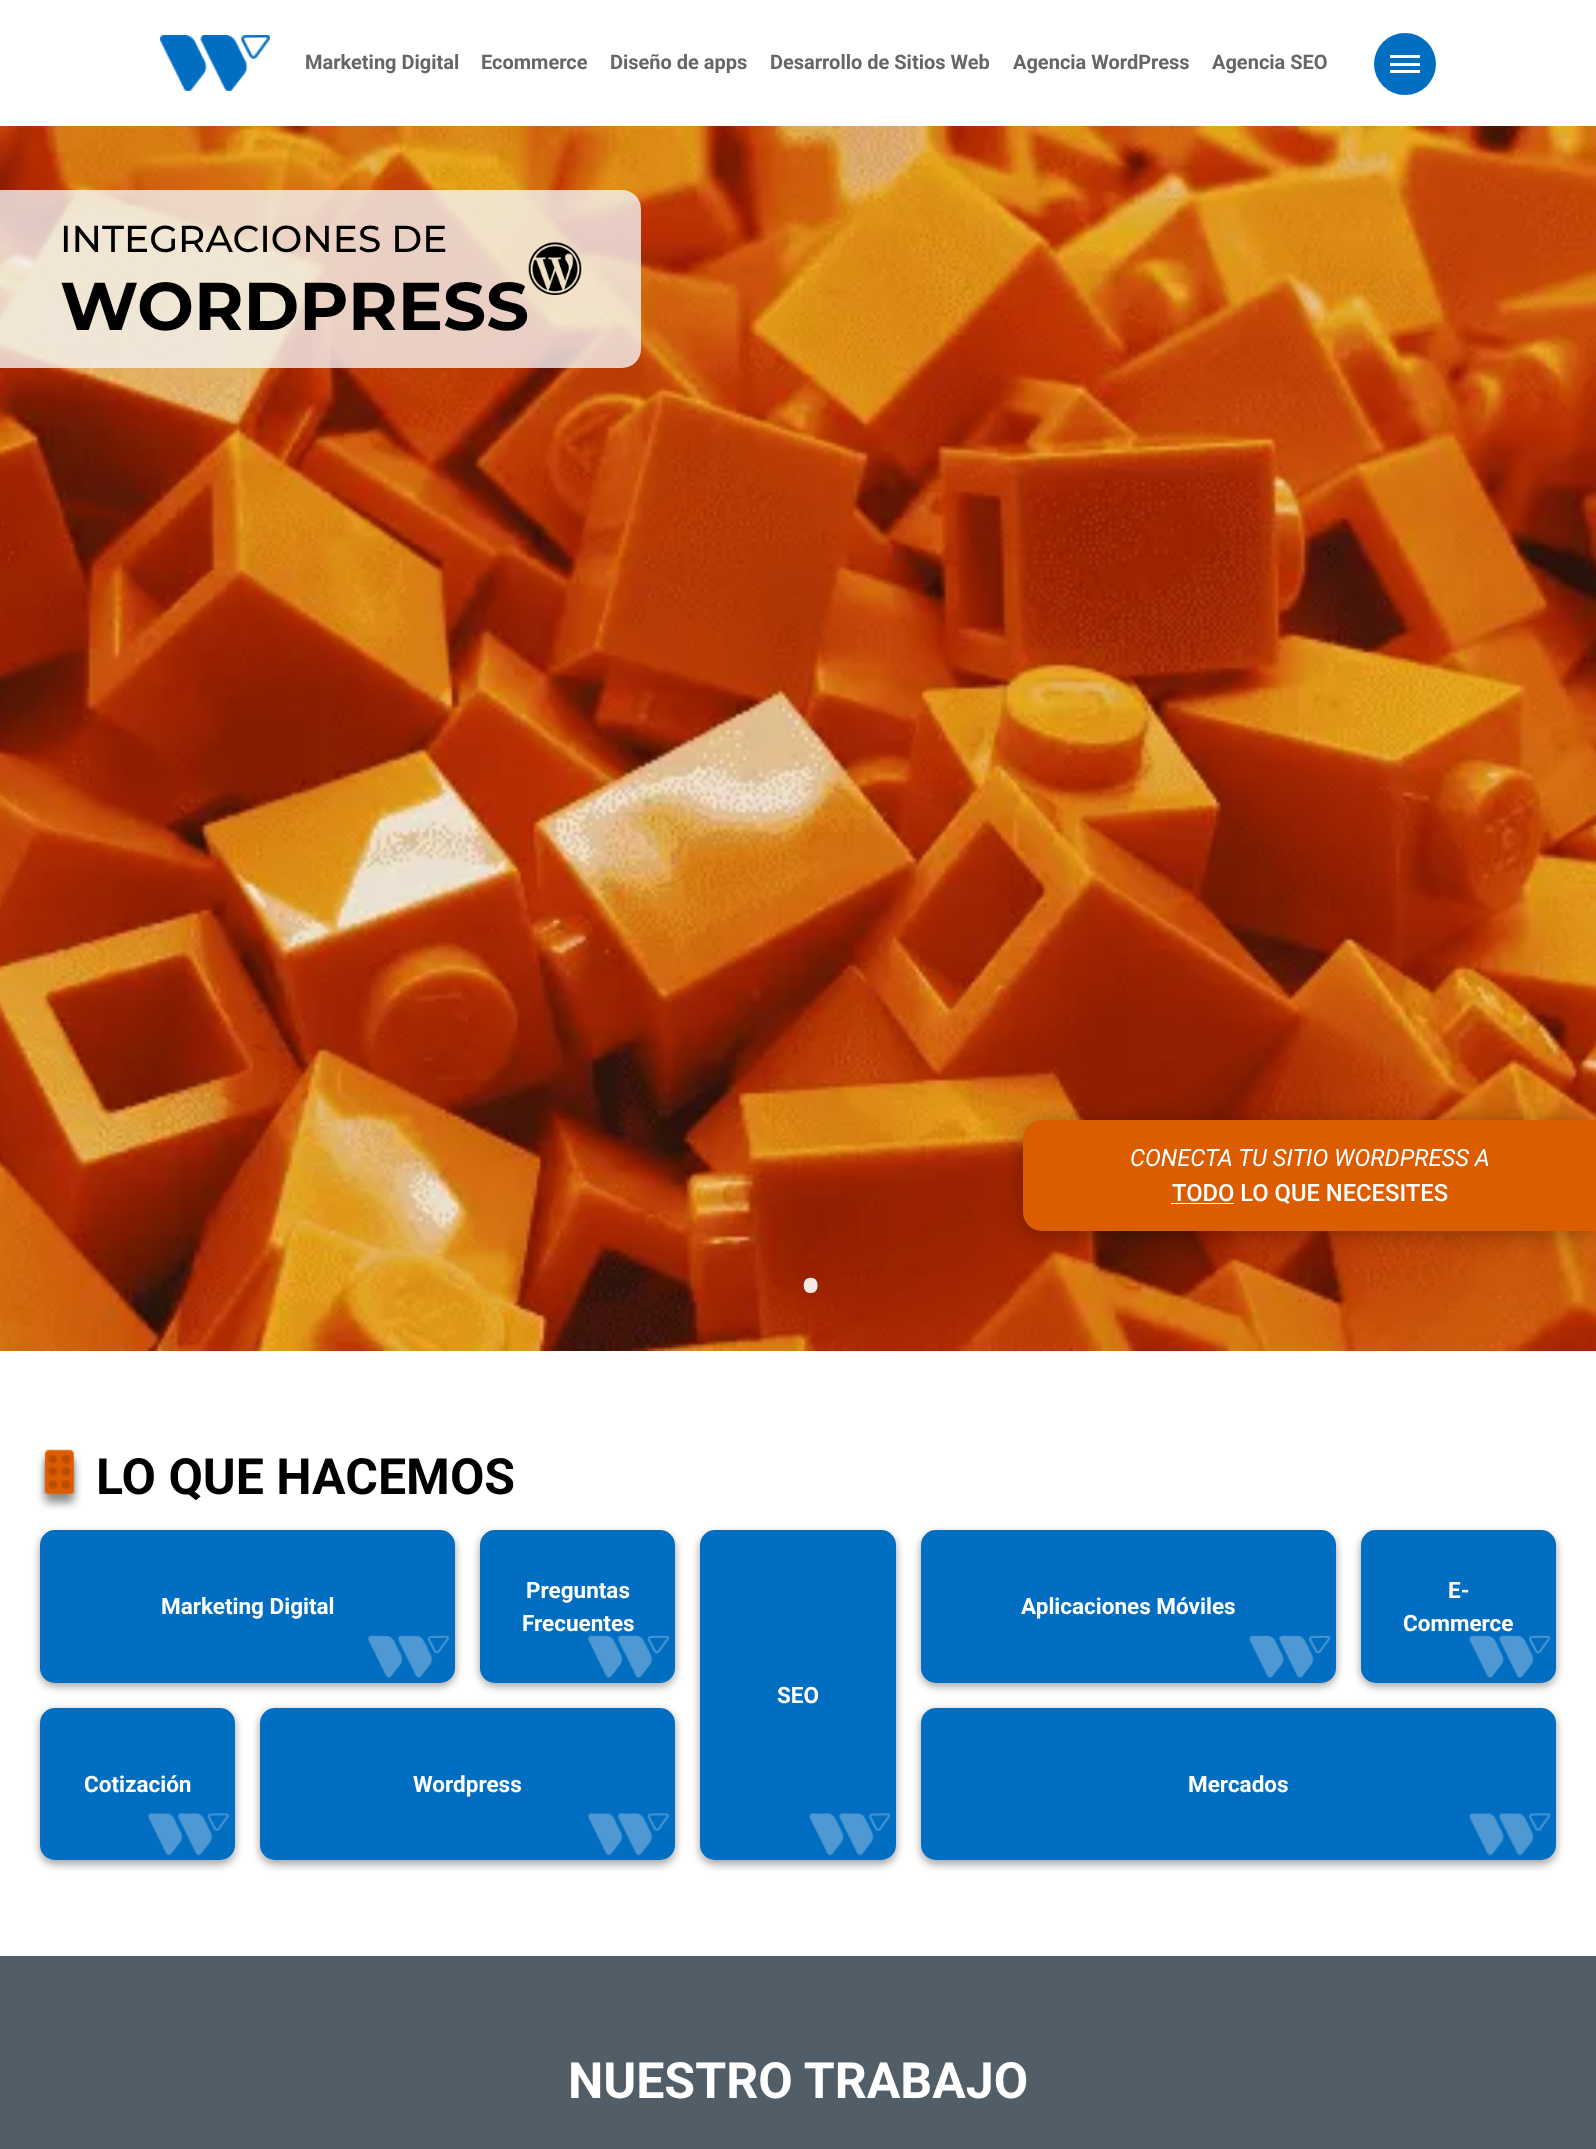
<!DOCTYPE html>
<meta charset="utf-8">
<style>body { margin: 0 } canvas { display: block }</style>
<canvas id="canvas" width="1596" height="2149"></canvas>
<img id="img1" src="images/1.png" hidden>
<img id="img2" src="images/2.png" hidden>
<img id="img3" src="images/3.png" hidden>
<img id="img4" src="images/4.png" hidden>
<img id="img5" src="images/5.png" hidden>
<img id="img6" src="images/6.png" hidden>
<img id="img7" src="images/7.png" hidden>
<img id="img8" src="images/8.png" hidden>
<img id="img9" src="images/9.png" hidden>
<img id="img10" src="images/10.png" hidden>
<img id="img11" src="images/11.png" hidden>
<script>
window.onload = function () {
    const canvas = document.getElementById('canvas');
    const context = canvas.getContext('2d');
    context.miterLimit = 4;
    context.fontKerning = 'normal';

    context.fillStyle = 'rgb(255, 255, 255)';
    context.fillRect(0, 0, 1596, 2149);
    context.drawImage(document.getElementById('img1'), 160, 35, 110, 56);
    context.fillStyle = 'rgb(2, 110, 194)';
    context.beginPath();
    context.arc(1405, 64, 31, 0, 2 * Math.PI);
    context.fill();
    context.fillStyle = 'rgb(255, 255, 255)';
    context.fillRect(1390, 55, 30, 3);
    context.fillRect(1390, 63, 30, 3);
    context.fillRect(1390, 70, 30, 3);
    context.drawImage(document.getElementById('img2'), 0, 126, 1596, 1225);
    context.fillStyle = 'rgba(244, 244, 244, 0.8)';
    context.beginPath();
    context.roundRect(0, 190, 641, 178, [0, 19, 19, 0]);
    context.fill();
    context.drawImage(document.getElementById('img3'), 528, 242, 54, 53);
    context.fillStyle = 'rgba(0, 0, 0, 0.3)';
    context.filter = 'blur(11px)';
    context.beginPath();
    context.roundRect(1023, 1123, 573, 111, 19);
    context.fill();
    context.filter = 'none';
    context.fillStyle = 'rgb(220, 92, 0)';
    context.beginPath();
    context.roundRect(1023, 1120, 573, 111, [19, 0, 0, 19]);
    context.fill();
    context.fillStyle = 'rgb(255, 255, 255)';
    context.fillRect(1171, 1203, 63, 1);
    context.drawImage(document.getElementById('img4'), 37, 1449, 45, 61);
    context.fillStyle = 'rgba(0, 0, 0, 0.23)';
    context.filter = 'blur(4px)';
    context.beginPath();
    context.roundRect(40, 1534, 415, 152, 15);
    context.fill();
    context.filter = 'none';
    context.fillStyle = 'rgba(0, 0, 0, 0.16)';
    context.filter = 'blur(4px)';
    context.beginPath();
    context.roundRect(40, 1534, 415, 152, 15);
    context.fill();
    context.filter = 'none';
    context.fillStyle = 'rgb(2, 110, 194)';
    context.beginPath();
    context.roundRect(40, 1530, 415, 153, 15);
    context.fill();
    context.drawImage(document.getElementById('img5'), 368, 1635, 82, 43);
    context.fillStyle = 'rgba(0, 0, 0, 0.23)';
    context.filter = 'blur(4px)';
    context.beginPath();
    context.roundRect(480, 1534, 195, 152, 15);
    context.fill();
    context.filter = 'none';
    context.fillStyle = 'rgba(0, 0, 0, 0.16)';
    context.filter = 'blur(4px)';
    context.beginPath();
    context.roundRect(480, 1534, 195, 152, 15);
    context.fill();
    context.filter = 'none';
    context.fillStyle = 'rgb(2, 110, 194)';
    context.beginPath();
    context.roundRect(480, 1530, 195, 153, 15);
    context.fill();
    context.drawImage(document.getElementById('img5'), 588, 1635, 82, 43);
    context.fillStyle = 'rgba(0, 0, 0, 0.23)';
    context.filter = 'blur(4px)';
    context.beginPath();
    context.roundRect(921, 1534, 415, 152, 15);
    context.fill();
    context.filter = 'none';
    context.fillStyle = 'rgba(0, 0, 0, 0.16)';
    context.filter = 'blur(4px)';
    context.beginPath();
    context.roundRect(921, 1534, 415, 152, 15);
    context.fill();
    context.filter = 'none';
    context.fillStyle = 'rgb(2, 110, 194)';
    context.beginPath();
    context.roundRect(921, 1530, 415, 153, 15);
    context.fill();
    context.drawImage(document.getElementById('img6'), 1249, 1635, 82, 43);
    context.fillStyle = 'rgba(0, 0, 0, 0.23)';
    context.filter = 'blur(4px)';
    context.beginPath();
    context.roundRect(1361, 1534, 195, 152, 15);
    context.fill();
    context.filter = 'none';
    context.fillStyle = 'rgba(0, 0, 0, 0.16)';
    context.filter = 'blur(4px)';
    context.beginPath();
    context.roundRect(1361, 1534, 195, 152, 15);
    context.fill();
    context.filter = 'none';
    context.fillStyle = 'rgb(2, 110, 194)';
    context.beginPath();
    context.roundRect(1361, 1530, 195, 153, 15);
    context.fill();
    context.drawImage(document.getElementById('img7'), 1469, 1635, 82, 43);
    context.fillStyle = 'rgba(0, 0, 0, 0.23)';
    context.filter = 'blur(4px)';
    context.beginPath();
    context.roundRect(700, 1534, 196, 330, 15);
    context.fill();
    context.filter = 'none';
    context.fillStyle = 'rgba(0, 0, 0, 0.16)';
    context.filter = 'blur(4px)';
    context.beginPath();
    context.roundRect(700, 1534, 196, 330, 15);
    context.fill();
    context.filter = 'none';
    context.fillStyle = 'rgb(2, 110, 194)';
    context.beginPath();
    context.roundRect(700, 1530, 196, 330, 15);
    context.fill();
    context.drawImage(document.getElementById('img8'), 809, 1813, 82, 43);
    context.fillStyle = 'rgba(0, 0, 0, 0.23)';
    context.filter = 'blur(4px)';
    context.beginPath();
    context.roundRect(40, 1711, 195, 153, 15);
    context.fill();
    context.filter = 'none';
    context.fillStyle = 'rgba(0, 0, 0, 0.16)';
    context.filter = 'blur(4px)';
    context.beginPath();
    context.roundRect(40, 1711, 195, 153, 15);
    context.fill();
    context.filter = 'none';
    context.fillStyle = 'rgb(2, 110, 194)';
    context.beginPath();
    context.roundRect(40, 1708, 195, 152, 15);
    context.fill();
    context.drawImage(document.getElementById('img9'), 148, 1813, 82, 43);
    context.fillStyle = 'rgba(0, 0, 0, 0.23)';
    context.filter = 'blur(4px)';
    context.beginPath();
    context.roundRect(260, 1711, 415, 153, 15);
    context.fill();
    context.filter = 'none';
    context.fillStyle = 'rgba(0, 0, 0, 0.16)';
    context.filter = 'blur(4px)';
    context.beginPath();
    context.roundRect(260, 1711, 415, 153, 15);
    context.fill();
    context.filter = 'none';
    context.fillStyle = 'rgb(2, 110, 194)';
    context.beginPath();
    context.roundRect(260, 1708, 415, 152, 15);
    context.fill();
    context.drawImage(document.getElementById('img10'), 588, 1813, 82, 43);
    context.fillStyle = 'rgba(0, 0, 0, 0.23)';
    context.filter = 'blur(4px)';
    context.beginPath();
    context.roundRect(921, 1711, 635, 153, 15);
    context.fill();
    context.filter = 'none';
    context.fillStyle = 'rgba(0, 0, 0, 0.16)';
    context.filter = 'blur(4px)';
    context.beginPath();
    context.roundRect(921, 1711, 635, 153, 15);
    context.fill();
    context.filter = 'none';
    context.fillStyle = 'rgb(2, 110, 194)';
    context.beginPath();
    context.roundRect(921, 1708, 635, 152, 15);
    context.fill();
    context.drawImage(document.getElementById('img11'), 1469, 1813, 82, 43);
    context.fillStyle = 'rgb(82, 94, 103)';
    context.fillRect(0, 1956, 1596, 193);
    context.font = 'bold 20px Roboto';
    context.fillStyle = 'rgb(102, 102, 102)';
    context.fillText('Marketing Digital', 305, 69);
    context.fillText('Ecommerce', 481, 69);
    context.fillText('Diseño de apps', 610, 69);
    context.fillText('Desarrollo de Sitios Web', 770, 69);
    context.fillText('Agencia WordPress', 1013, 69);
    context.fillText('Agencia SEO', 1212, 69);
    context.font = '100 37.5px Montserrat';
    context.fillStyle = 'rgb(0, 0, 0)';
    context.fillText('INTEGRACIONES DE', 60, 252);
    context.font = '100 67.5px "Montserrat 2"';
    context.fillText('WORDPRESS', 60, 330);
    context.font = 'italic 23.75px Roboto';
    context.fillStyle = 'rgb(255, 255, 255)';
    context.fillText('CONECTA TU SITIO WORDPRESS A', 1130, 1166);
    context.font = '500 23.75px Roboto';
    context.fillText('TODO LO QUE NECESITES', 1172, 1201);
    context.font = '62px Noto Sans';
    context.fillStyle = 'rgb(245, 233, 230)';
    context.fillText('•', 799, 1308);
    context.font = 'bold 50px Roboto';
    context.fillStyle = 'rgb(0, 0, 0)';
    context.fillText('LO QUE HACEMOS', 96, 1494);
    context.font = 'bold 22.5px Roboto';
    context.fillStyle = 'rgb(255, 255, 255)';
    context.fillText('Marketing Digital', 161, 1614);
    context.fillText('Preguntas', 526, 1598);
    context.fillText('Frecuentes', 522, 1631);
    context.fillText('Aplicaciones Móviles', 1021, 1614);
    context.fillText('E-', 1448, 1598);
    context.fillText('Commerce', 1403, 1631);
    context.fillText('SEO', 777, 1703);
    context.fillText('Cotización', 84, 1792);
    context.fillText('Wordpress', 413, 1792);
    context.fillText('Mercados', 1188, 1792);
    context.font = 'bold 50px Roboto';
    context.fillText('NUESTRO TRABAJO', 568, 2098);
};
</script>
